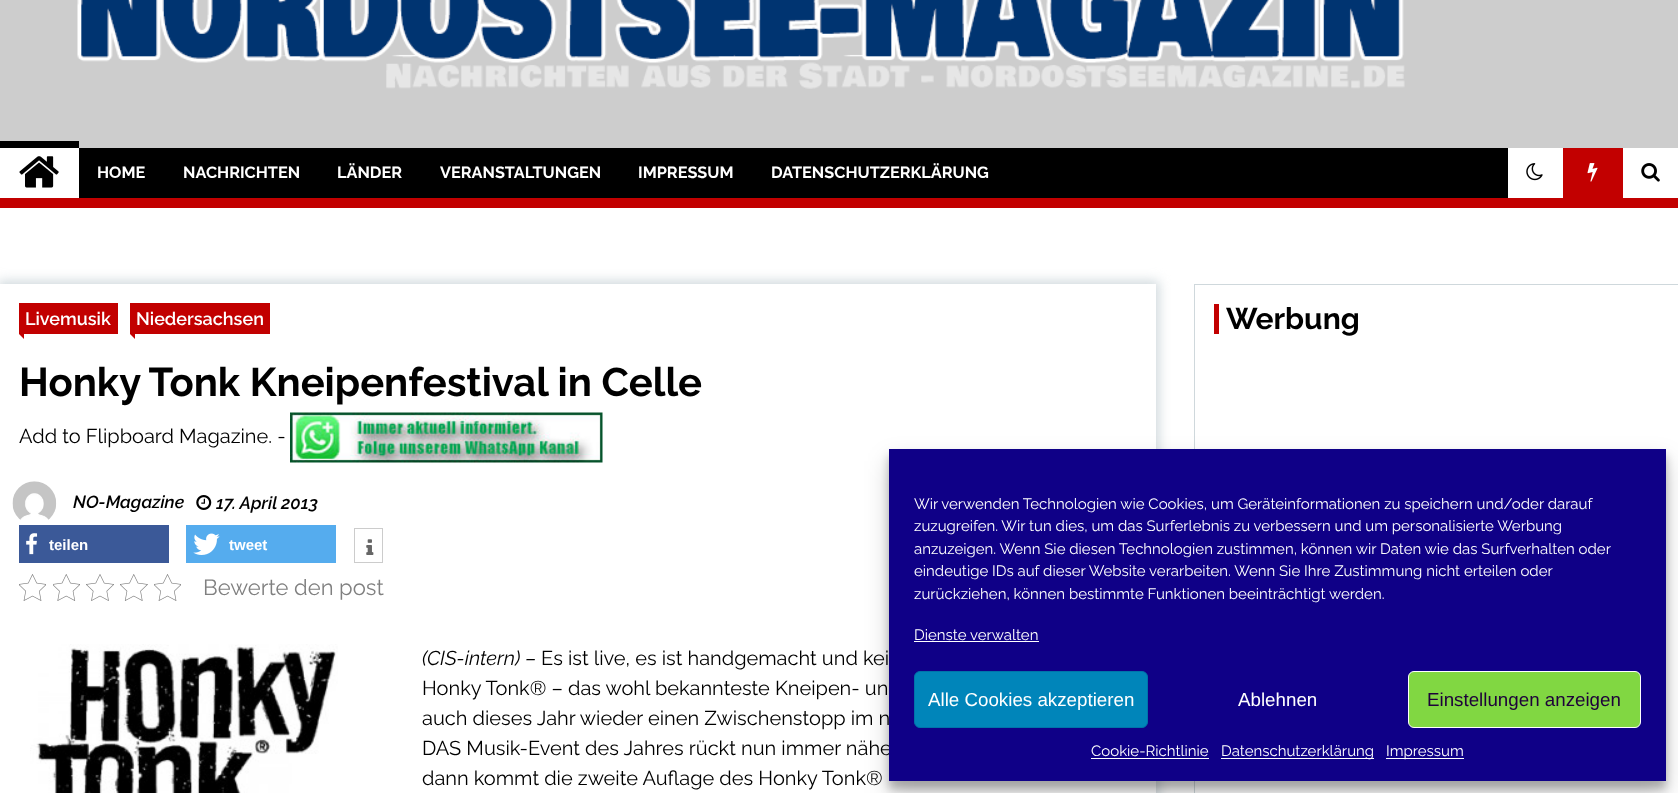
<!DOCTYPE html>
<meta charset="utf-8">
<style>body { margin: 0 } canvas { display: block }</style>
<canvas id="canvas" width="1678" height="793"></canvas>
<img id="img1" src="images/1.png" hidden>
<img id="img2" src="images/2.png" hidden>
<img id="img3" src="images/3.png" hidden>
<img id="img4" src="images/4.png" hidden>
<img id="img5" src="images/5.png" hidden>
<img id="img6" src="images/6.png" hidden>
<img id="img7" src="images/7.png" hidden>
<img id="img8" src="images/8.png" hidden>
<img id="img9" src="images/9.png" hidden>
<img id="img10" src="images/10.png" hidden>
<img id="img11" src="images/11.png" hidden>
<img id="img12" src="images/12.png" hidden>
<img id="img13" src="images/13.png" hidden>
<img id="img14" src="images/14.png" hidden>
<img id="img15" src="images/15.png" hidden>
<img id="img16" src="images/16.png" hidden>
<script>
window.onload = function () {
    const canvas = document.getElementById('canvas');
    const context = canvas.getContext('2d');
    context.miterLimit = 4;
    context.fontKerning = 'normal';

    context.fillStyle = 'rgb(255, 255, 255)';
    context.fillRect(0, 0, 1678, 793);
    context.fillStyle = 'rgb(205, 205, 205)';
    context.fillRect(0, 0, 1678, 148);
    context.drawImage(document.getElementById('img1'), 77, 0, 1328, 89);
    context.fillStyle = 'rgb(0, 0, 0)';
    context.fillRect(79, 148, 1429, 50);
    context.fillRect(0, 141, 79, 7);
    context.drawImage(document.getElementById('img2'), 19, 156, 40, 32);
    context.drawImage(document.getElementById('img3'), 1526, 163, 17, 18);
    context.fillStyle = 'rgb(194, 0, 0)';
    context.fillRect(1563, 148, 60, 50);
    context.drawImage(document.getElementById('img4'), 1587, 163, 11, 19);
    context.drawImage(document.getElementById('img5'), 1641, 163, 19, 19);
    context.fillRect(0, 198, 1678, 10);
    context.save();
    context.beginPath();
    context.moveTo(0, 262);
    context.lineTo(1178, 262);
    context.lineTo(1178, 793);
    context.lineTo(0, 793);
    context.closePath();
    context.moveTo(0, 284);
    context.lineTo(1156, 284);
    context.lineTo(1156, 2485);
    context.lineTo(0, 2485);
    context.closePath();
    context.clip('evenodd');
    context.fillStyle = 'rgb(207, 216, 220)';
    context.filter = 'blur(6px)';
    context.beginPath();
    context.rect(-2, 281, 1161, 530);
    context.fill();
    context.filter = 'none';
    context.restore();
    context.fillRect(19, 303, 99, 31);
    context.beginPath();
    context.moveTo(24, 334);
    context.lineTo(24, 339);
    context.lineTo(19, 334);
    context.closePath();
    context.fill();
    context.fillRect(130, 303, 140, 31);
    context.beginPath();
    context.moveTo(135, 334);
    context.lineTo(135, 339);
    context.lineTo(130, 334);
    context.closePath();
    context.fill();
    context.drawImage(document.getElementById('img6'), 290, 412, 313, 51);
    context.drawImage(document.getElementById('img7'), 12, 481, 45, 39);
    context.drawImage(document.getElementById('img8'), 196, 495, 16, 15);
    context.fillStyle = 'rgb(59, 89, 152)';
    context.fillRect(19, 525, 150, 38);
    context.drawImage(document.getElementById('img9'), 26, 533, 12, 22);
    context.fillStyle = 'rgb(85, 172, 238)';
    context.fillRect(186, 525, 150, 38);
    context.drawImage(document.getElementById('img10'), 193, 533, 27, 22);
    context.strokeStyle = 'rgb(204, 204, 204)';
    context.strokeRect(354.5, 528.5, 28, 34);
    context.drawImage(document.getElementById('img11'), 366, 539, 8, 16);
    context.drawImage(document.getElementById('img12'), 19, 574, 27, 27);
    context.drawImage(document.getElementById('img13'), 53, 574, 27, 27);
    context.drawImage(document.getElementById('img14'), 86, 574, 28, 27);
    context.drawImage(document.getElementById('img15'), 120, 574, 28, 27);
    context.drawImage(document.getElementById('img12'), 154, 574, 27, 27);
    context.drawImage(document.getElementById('img16'), 30, 644, 308, 149);
    context.strokeStyle = 'rgb(207, 216, 220)';
    context.strokeRect(1194.5, 284.5, 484, 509);
    context.fillStyle = 'rgb(194, 0, 0)';
    context.fillRect(1214, 304, 5, 30);
    context.fillStyle = 'rgba(0, 0, 0, 0.23)';
    context.filter = 'blur(4px)';
    context.beginPath();
    context.rect(889, 456, 777, 333);
    context.fill();
    context.filter = 'none';
    context.fillStyle = 'rgba(0, 0, 0, 0.19)';
    context.filter = 'blur(12.5px)';
    context.beginPath();
    context.rect(889, 461, 777, 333);
    context.fill();
    context.filter = 'none';
    context.font = '100 16.25px Raleway';
    context.fillStyle = 'rgb(255, 255, 255)';
    context.fillText('HOME', 97, 178);
    context.fillText('NACHRICHTEN', 183, 178);
    context.fillText('LÄNDER', 337, 178);
    context.fillText('VERANSTALTUNGEN', 440, 178);
    context.fillText('IMPRESSUM', 638, 178);
    context.fillText('DATENSCHUTZERKLÄRUNG', 771, 178);
    context.font = '100 18px "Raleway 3"';
    context.fillText('Livemusik', 25, 325);
    context.fillText('Niedersachsen', 136, 325);
    context.font = '100 40px Raleway';
    context.fillStyle = 'rgb(0, 0, 0)';
    context.fillText('Honky Tonk Kneipenfestival in Celle', 19, 396);
    context.font = '100 20px "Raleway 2"';
    context.fillText('Add to Flipboard Magazine. -', 19, 443);
    context.font = 'italic 100 17.5px Raleway';
    context.fillText('NO-Magazine', 73, 508);
    context.fillText('17. April 2013', 216, 509);
    context.font = 'bold 15px Liberation Sans';
    context.fillStyle = 'rgb(255, 255, 255)';
    context.fillText('teilen', 49, 550);
    context.fillText('tweet', 229, 550);
    context.font = '100 22px "Raleway 2"';
    context.fillStyle = 'rgb(128, 128, 128)';
    context.fillText('Bewerte den post', 203, 595);
    context.font = 'italic 100 20px "Raleway 2"';
    context.fillStyle = 'rgb(0, 0, 0)';
    context.fillText('(CIS-intern) –', 422, 665);
    context.font = '100 20px "Raleway 2"';
    context.fillText('Es ist live, es ist handgemacht und kei', 541, 665);
    context.fillText('Honky Tonk® – das wohl bekannteste Kneipen- un', 422, 695);
    context.fillText('auch dieses Jahr wieder einen Zwischenstopp im n', 422, 725);
    context.fillText('DAS Musik-Event des Jahres rückt nun immer nähe', 422, 755);
    context.fillText('dann kommt die zweite Auflage des Honky Tonk®', 422, 785);
    context.font = '100 30px Raleway';
    context.fillText('Werbung', 1226, 329);
    context.fillStyle = 'rgb(15, 0, 135)';
    context.fillRect(889, 449, 777, 332);
    context.font = '100 15px "Raleway 2"';
    context.fillStyle = 'rgb(255, 255, 255)';
    context.fillText('Wir verwenden Technologien wie Cookies, um Geräteinformationen zu speichern und/oder darauf', 914, 509);
    context.fillText('zuzugreifen. Wir tun dies, um das Surferlebnis zu verbessern und um personalisierte Werbung', 914, 531);
    context.fillText('anzuzeigen. Wenn Sie diesen Technologien zustimmen, können wir Daten wie das Surfverhalten oder', 914, 554);
    context.fillText('eindeutige IDs auf dieser Website verarbeiten. Wenn Sie Ihre Zustimmung nicht erteilen oder', 914, 576);
    context.fillText('zurückziehen, können bestimmte Funktionen beeinträchtigt werden.', 914, 599);
    context.fillText('Dienste verwalten', 914, 640);
    context.fillRect(914, 641, 125, 1);
    context.fillStyle = 'rgb(0, 133, 186)';
    context.beginPath();
    context.roundRect(914.5, 671.5, 233, 56, 5.5);
    context.fill();
    context.strokeStyle = 'rgb(0, 115, 170)';
    context.stroke();
    context.font = '18.75px Liberation Sans';
    context.fillStyle = 'rgb(255, 255, 255)';
    context.fillText('Alle Cookies akzeptieren', 928, 706);
    context.fillText('Ablehnen', 1238, 706);
    context.fillStyle = 'rgb(129, 215, 66)';
    context.beginPath();
    context.roundRect(1408.5, 671.5, 232, 56, 5.5);
    context.fill();
    context.strokeStyle = 'rgb(255, 255, 255)';
    context.stroke();
    context.fillStyle = 'rgb(30, 1, 58)';
    context.fillText('Einstellungen anzeigen', 1427, 706);
    context.font = '100 15px "Raleway 2"';
    context.fillStyle = 'rgb(255, 255, 255)';
    context.fillText('Cookie-Richtlinie', 1091, 756);
    context.fillRect(1091, 758, 118, 1);
    context.fillRect(1221, 758, 153, 1);
    context.fillText('Datenschutzerklärung', 1221, 756);
    context.fillRect(1386, 758, 78, 1);
    context.fillText('Impressum', 1386, 756);
};
</script>
